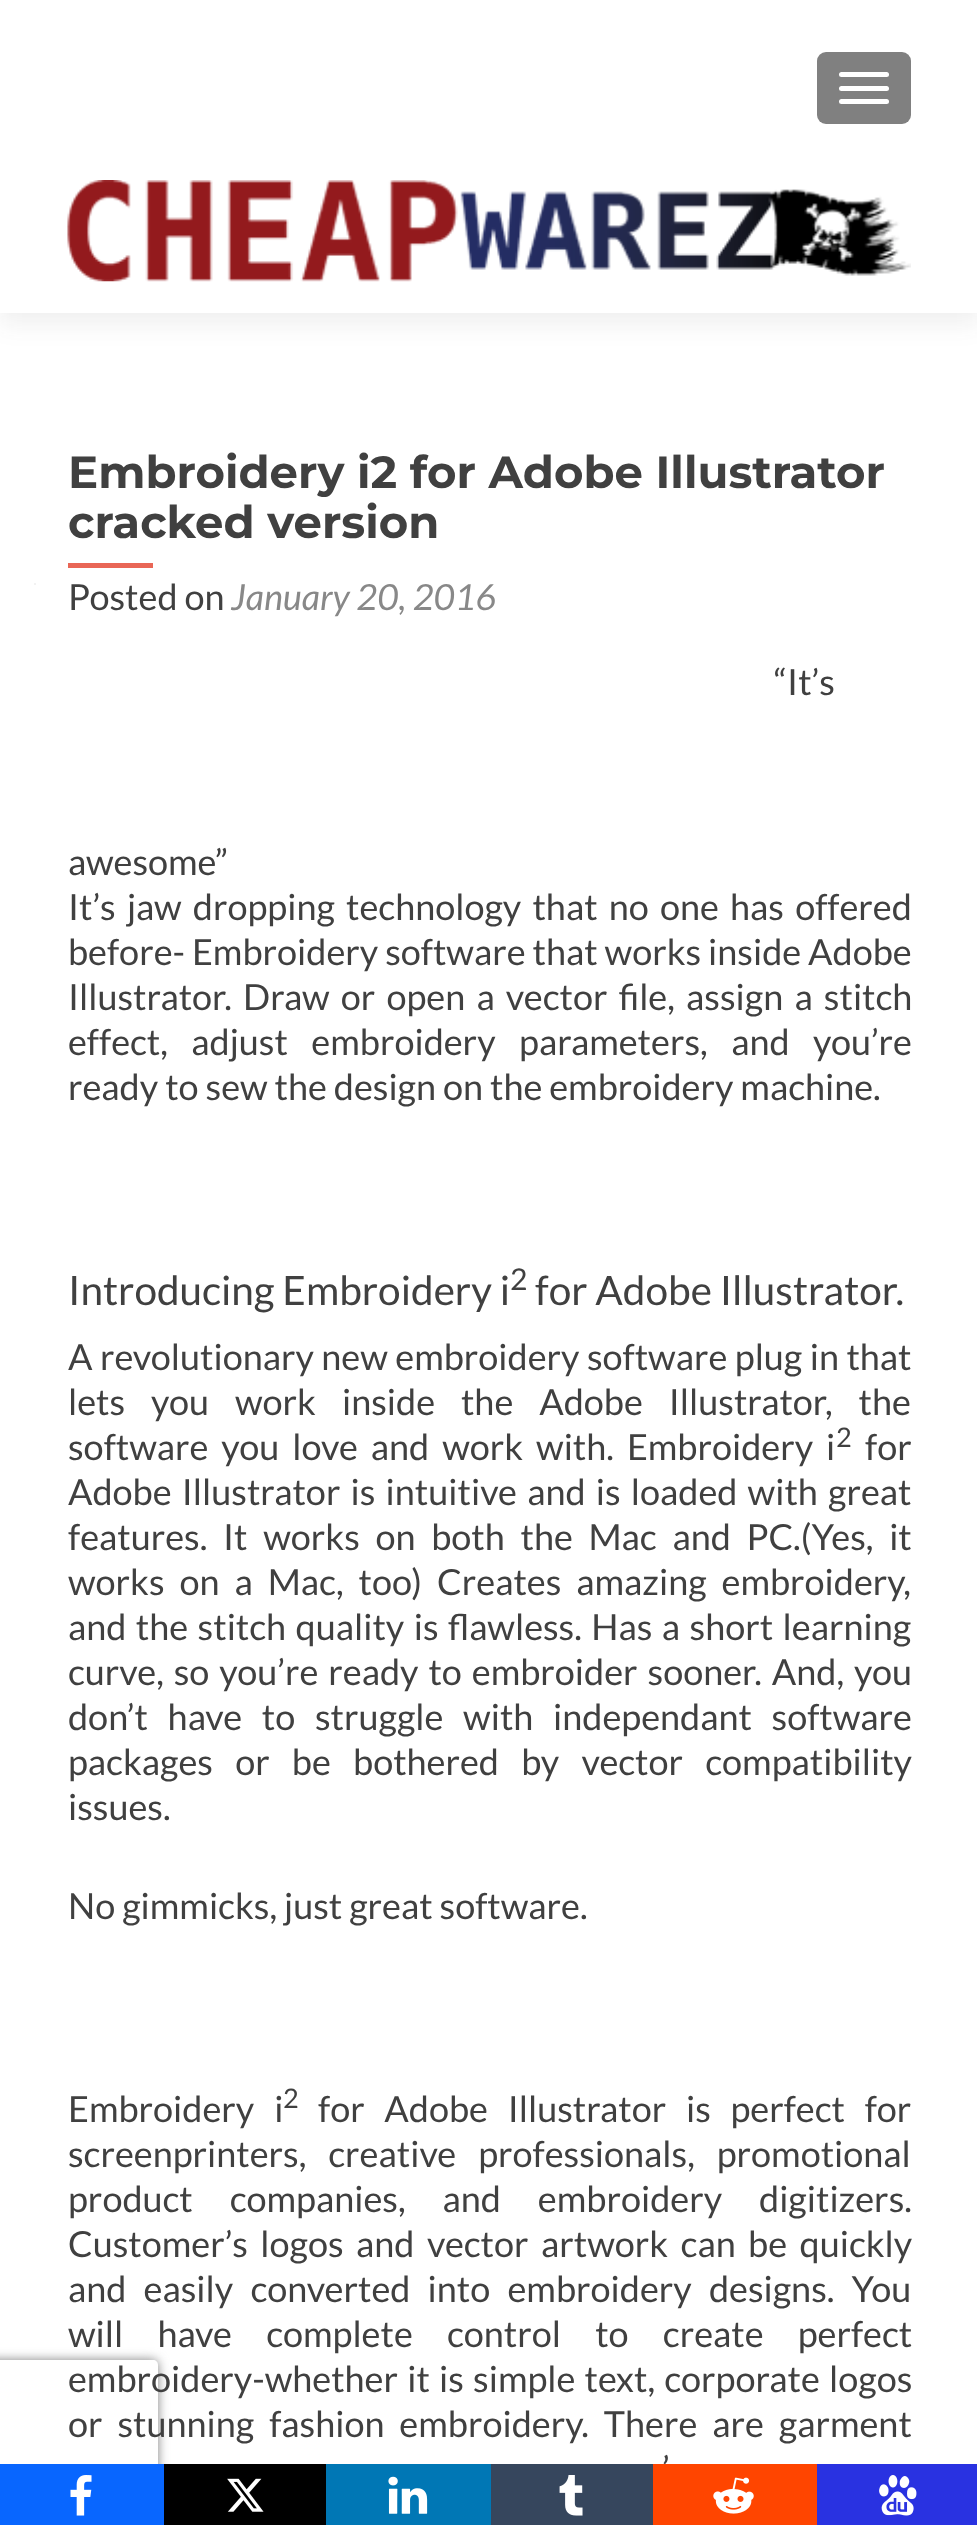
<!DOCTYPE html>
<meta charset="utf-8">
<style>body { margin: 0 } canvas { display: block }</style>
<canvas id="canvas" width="977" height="2525"></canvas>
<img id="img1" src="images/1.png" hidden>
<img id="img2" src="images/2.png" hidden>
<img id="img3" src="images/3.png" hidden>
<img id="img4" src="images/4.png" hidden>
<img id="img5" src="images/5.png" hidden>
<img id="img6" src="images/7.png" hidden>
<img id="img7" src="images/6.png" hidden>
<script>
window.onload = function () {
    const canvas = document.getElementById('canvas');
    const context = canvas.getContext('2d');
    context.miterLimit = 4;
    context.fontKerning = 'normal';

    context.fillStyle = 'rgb(255, 255, 255)';
    context.fillRect(0, 0, 977, 2525);
    context.fillStyle = 'rgba(50, 50, 50, 0.08)';
    context.filter = 'blur(12.5px)';
    context.beginPath();
    context.rect(0, 11, 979, 313);
    context.fill();
    context.filter = 'none';
    context.fillStyle = 'rgb(255, 255, 255)';
    context.fillRect(0, 0, 977, 313);
    context.fillStyle = 'rgb(128, 128, 128)';
    context.beginPath();
    context.roundRect(817, 52, 94, 72, 9);
    context.fill();
    context.fillStyle = 'rgb(255, 255, 255)';
    context.beginPath();
    context.roundRect(839, 72, 50, 5, 2.5);
    context.fill();
    context.beginPath();
    context.roundRect(839, 86, 50, 5, 2.5);
    context.fill();
    context.beginPath();
    context.roundRect(839, 99, 50, 5, 2.5);
    context.fill();
    context.drawImage(document.getElementById('img1'), 67, 180, 844, 102);
    context.fillStyle = 'rgb(233, 102, 86)';
    context.fillRect(68, 563, 85, 5);
    context.fillStyle = 'rgb(242, 242, 242)';
    context.fillRect(34, 583, 2, 2);
    context.save();
    context.beginPath();
    context.moveTo(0, 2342);
    context.lineTo(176, 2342);
    context.lineTo(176, 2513);
    context.lineTo(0, 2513);
    context.closePath();
    context.moveTo(-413, 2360);
    context.lineTo(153, 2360);
    context.bezierCurveTo(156, 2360, 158, 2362, 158, 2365);
    context.lineTo(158, 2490);
    context.bezierCurveTo(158, 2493, 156, 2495, 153, 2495);
    context.lineTo(-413, 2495);
    context.bezierCurveTo(-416, 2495, -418, 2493, -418, 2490);
    context.lineTo(-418, 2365);
    context.bezierCurveTo(-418, 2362, -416, 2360, -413, 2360);
    context.closePath();
    context.clip('evenodd');
    context.fillStyle = 'rgb(128, 128, 128)';
    context.filter = 'blur(5.5px)';
    context.beginPath();
    context.roundRect(-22, 2360, 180, 135, 5);
    context.fill();
    context.filter = 'none';
    context.restore();
    context.fillStyle = 'rgb(8, 102, 255)';
    context.fillRect(0, 2464, 164, 61);
    context.drawImage(document.getElementById('img2'), 70, 2475, 22, 41);
    context.fillStyle = 'rgb(0, 0, 0)';
    context.fillRect(164, 2464, 162, 61);
    context.drawImage(document.getElementById('img3'), 227, 2478, 37, 34);
    context.fillStyle = 'rgb(0, 119, 181)';
    context.fillRect(326, 2464, 165, 61);
    context.drawImage(document.getElementById('img4'), 388, 2476, 40, 38);
    context.fillStyle = 'rgb(54, 70, 93)';
    context.fillRect(491, 2464, 162, 61);
    context.drawImage(document.getElementById('img5'), 559, 2475, 24, 41);
    context.fillStyle = 'rgb(41, 50, 225)';
    context.fillRect(817, 2464, 160, 61);
    context.drawImage(document.getElementById('img6'), 879, 2475, 38, 41);
    context.font = 'bold 45px Montserrat';
    context.fillStyle = 'rgb(64, 64, 64)';
    context.fillText('Embroidery i2 for Adobe Illustrator', 68, 488);
    context.fillText('cracked version', 68, 538);
    context.font = '36px Lato';
    context.fillText('Posted on', 68, 610);
    context.font = 'italic 36px Lato';
    context.fillStyle = 'rgb(136, 136, 136)';
    context.fillText('January 20, 2016', 231, 610);
    context.font = '36px Lato';
    context.fillStyle = 'rgb(64, 64, 64)';
    context.fillText('“It’s', 774, 695);
    context.fillText('awesome”', 68, 875);
    context.wordSpacing = '4.25px';
    context.fillText('It’s jaw dropping technology that no one has offered', 68, 920);
    context.wordSpacing = '0px';
    context.fillText('before- Embroidery software that works inside Adobe', 68, 965);
    context.wordSpacing = '4.25px';
    context.fillText('Illustrator. Draw or open a vector file, assign a stitch', 68, 1010);
    context.wordSpacing = '16.5px';
    context.fillText('effect, adjust embroidery parameters, and you’re', 68, 1055);
    context.wordSpacing = '0px';
    context.fillText('ready to sew the design on the embroidery machine.', 68, 1100);
    context.font = '40.5px Lato';
    context.fillText('Introducing Embroidery i', 68, 1305);
    context.font = '30px Lato';
    context.fillText('2', 510, 1290);
    context.font = '40.5px Lato';
    context.fillText('for Adobe Illustrator.', 535, 1305);
    context.wordSpacing = '0.5px';
    context.font = '36px Lato';
    context.fillText('A revolutionary new embroidery software plug in that', 68, 1370);
    context.wordSpacing = '19px';
    context.fillText('lets you work inside the Adobe Illustrator, the', 68, 1415);
    context.wordSpacing = '6px';
    context.fillText('software you love and work with. Embroidery i', 68, 1460);
    context.wordSpacing = '0px';
    context.font = '27px Lato';
    context.fillText('2', 836, 1447);
    context.font = '36px Lato';
    context.fillText('for', 865, 1460);
    context.wordSpacing = '3.25px';
    context.fillText('Adobe Illustrator is intuitive and is loaded with great', 68, 1505);
    context.wordSpacing = '8.75px';
    context.fillText('features. It works on both the Mac and PC.(Yes, it', 68, 1550);
    context.wordSpacing = '8px';
    context.fillText('works on a Mac, too) Creates amazing embroidery,', 68, 1595);
    context.wordSpacing = '2.5px';
    context.fillText('and the stitch quality is flawless. Has a short learning', 68, 1640);
    context.wordSpacing = '3px';
    context.fillText('curve, so you’re ready to embroider sooner. And, you', 68, 1685);
    context.wordSpacing = '12.75px';
    context.fillText('don’t have to struggle with independant software', 68, 1730);
    context.wordSpacing = '15.25px';
    context.fillText('packages or be bothered by vector compatibility', 68, 1775);
    context.wordSpacing = '0px';
    context.fillText('issues.', 68, 1820);
    context.fillText('No gimmicks, just great software.', 68, 1919);
    context.wordSpacing = '13px';
    context.fillText('Embroidery i', 68, 2122);
    context.wordSpacing = '0px';
    context.font = '27px Lato';
    context.fillText('2', 283, 2108);
    context.wordSpacing = '12.75px';
    context.font = '36px Lato';
    context.fillText('for Adobe Illustrator is perfect for', 318, 2122);
    context.wordSpacing = '15px';
    context.fillText('screenprinters, creative professionals, promotional', 68, 2167);
    context.wordSpacing = '30px';
    context.fillText('product companies, and embroidery digitizers.', 68, 2212);
    context.wordSpacing = '5.5px';
    context.fillText('Customer’s logos and vector artwork can be quickly', 68, 2257);
    context.wordSpacing = '10.25px';
    context.fillText('and easily converted into embroidery designs. You', 68, 2302);
    context.wordSpacing = '27.25px';
    context.fillText('will have complete control to create perfect', 68, 2347);
    context.wordSpacing = '2.25px';
    context.fillText('embroidery-whether it is simple text, corporate logos', 68, 2392);
    context.wordSpacing = '8px';
    context.fillText('or stunning fashion embroidery. There are garment', 68, 2437);
    context.wordSpacing = '4px';
    context.fillText('’', 662, 2482);
    context.fillStyle = 'rgb(255, 69, 0)';
    context.fillRect(653, 2464, 164, 61);
    context.drawImage(document.getElementById('img7'), 713, 2477, 41, 37);
};
</script>
